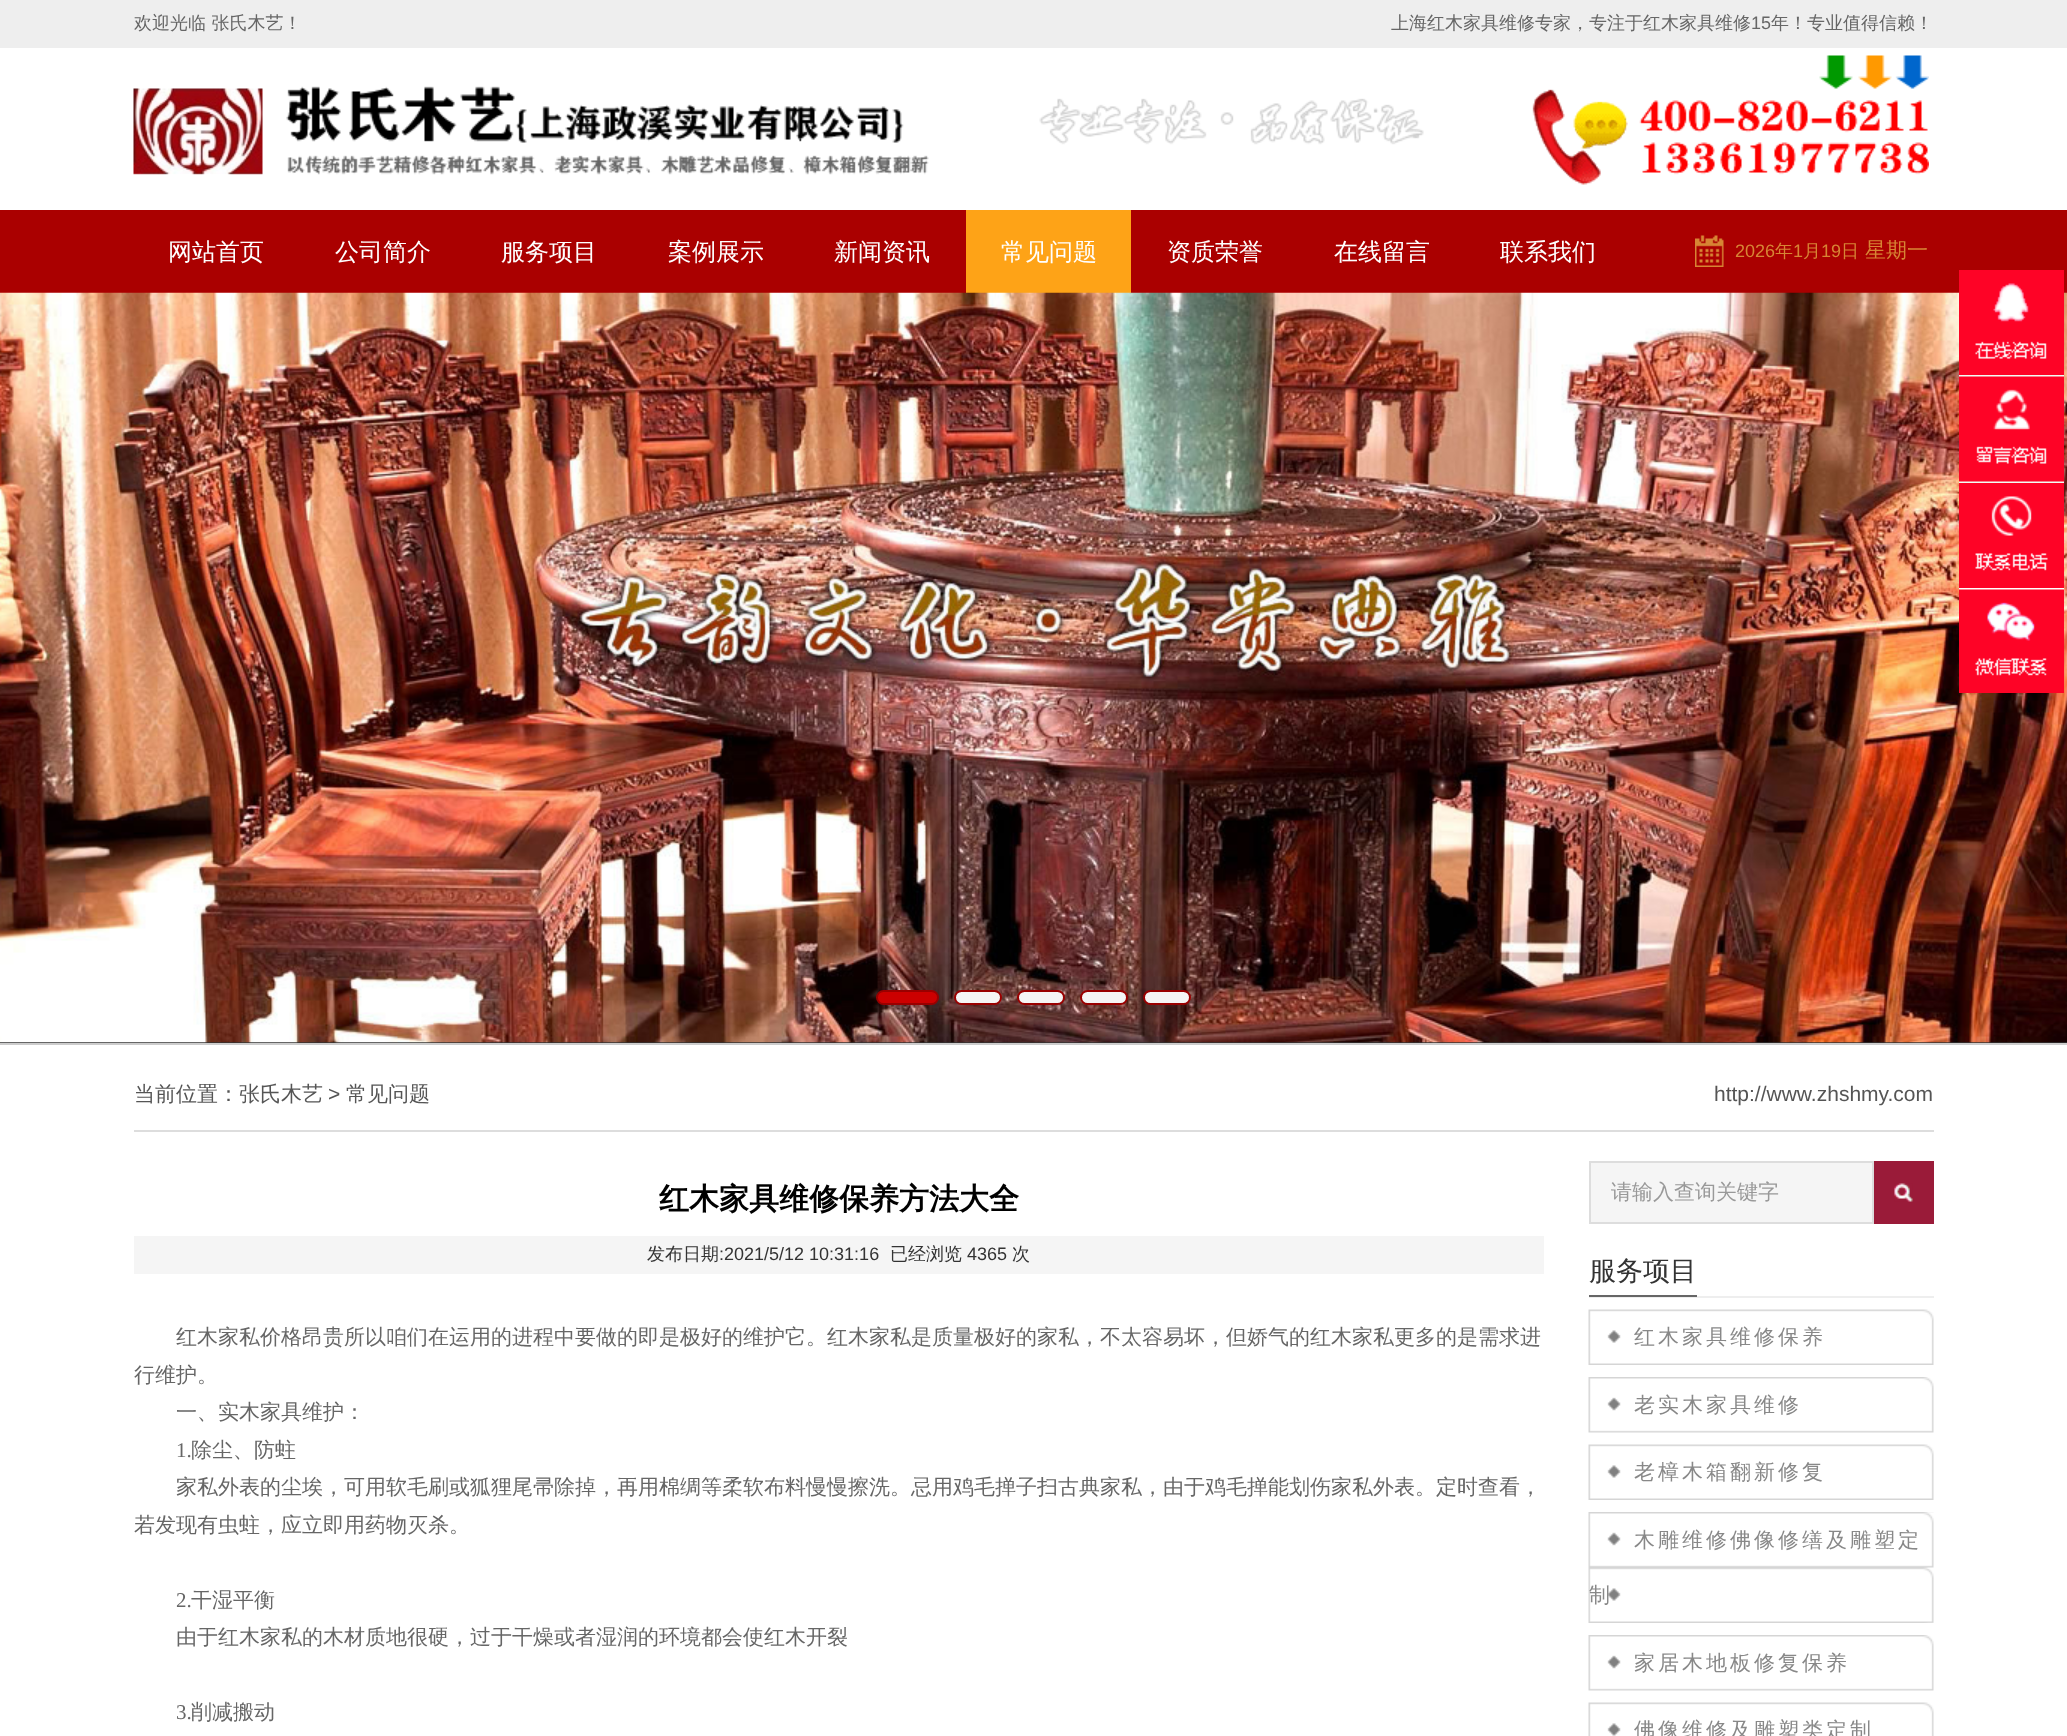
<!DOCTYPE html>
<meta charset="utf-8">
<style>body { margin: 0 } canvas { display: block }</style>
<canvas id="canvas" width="2067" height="1736"></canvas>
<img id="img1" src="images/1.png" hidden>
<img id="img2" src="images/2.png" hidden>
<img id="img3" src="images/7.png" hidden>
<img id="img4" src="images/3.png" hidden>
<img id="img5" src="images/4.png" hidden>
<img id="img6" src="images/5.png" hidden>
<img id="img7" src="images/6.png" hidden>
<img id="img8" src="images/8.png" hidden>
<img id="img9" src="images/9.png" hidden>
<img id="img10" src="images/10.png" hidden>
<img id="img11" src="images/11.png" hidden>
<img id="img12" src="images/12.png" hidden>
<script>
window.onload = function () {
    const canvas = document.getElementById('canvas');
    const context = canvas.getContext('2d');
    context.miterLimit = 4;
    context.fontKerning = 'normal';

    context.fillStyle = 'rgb(255, 255, 255)';
    context.fillRect(0, 0, 2067, 1736);
    context.fillStyle = 'rgb(238, 238, 238)';
    context.fillRect(0, 0, 2067, 48);
    context.drawImage(document.getElementById('img1'), 133, 55, 1796, 130);
    context.fillStyle = 'rgb(170, 0, 0)';
    context.fillRect(0, 210, 2067, 83);
    context.fillStyle = 'rgb(254, 163, 23)';
    context.fillRect(966, 210, 165, 83);
    context.drawImage(document.getElementById('img2'), 1695, 235, 29, 32);
    context.fillStyle = 'rgb(51, 51, 51)';
    context.fillRect(0, 1042, 2067, 1);
    context.drawImage(document.getElementById('img3'), 0, 292, 2067, 751);
    context.drawImage(document.getElementById('img4'), 1959, 270, 105, 105);
    context.drawImage(document.getElementById('img5'), 1959, 375, 105, 108);
    context.drawImage(document.getElementById('img6'), 1959, 483, 105, 105);
    context.drawImage(document.getElementById('img7'), 1959, 588, 105, 105);
    context.fillStyle = 'rgb(204, 204, 204)';
    context.fillRect(0, 1043, 2067, 2);
    context.fillStyle = 'rgb(204, 0, 0)';
    context.beginPath();
    context.roundRect(877, 991, 61, 13, 6.5);
    context.fill();
    context.strokeStyle = 'rgb(153, 0, 0)';
    context.lineWidth = 2;
    context.stroke();
    context.fillStyle = 'rgb(245, 245, 245)';
    context.beginPath();
    context.roundRect(955, 991, 46, 13, 6.5);
    context.fill();
    context.stroke();
    context.beginPath();
    context.roundRect(1018, 991, 46, 13, 6.5);
    context.fill();
    context.stroke();
    context.beginPath();
    context.roundRect(1081, 991, 46, 13, 6.5);
    context.fill();
    context.stroke();
    context.beginPath();
    context.roundRect(1144, 991, 46, 13, 6.5);
    context.fill();
    context.stroke();
    context.fillStyle = 'rgb(221, 221, 221)';
    context.fillRect(134, 1130, 1800, 2);
    context.fillStyle = 'rgb(245, 245, 245)';
    context.fillRect(134, 1236, 1410, 38);
    context.beginPath();
    context.rect(1590, 1162, 283, 61);
    context.fill();
    context.strokeStyle = 'rgb(221, 221, 221)';
    context.stroke();
    context.fillStyle = 'rgb(154, 27, 57)';
    context.fillRect(1874, 1161, 60, 63);
    context.drawImage(document.getElementById('img8'), 1894, 1183, 19, 19);
    context.fillStyle = 'rgb(238, 238, 238)';
    context.fillRect(1589, 1296, 345, 2);
    context.fillStyle = 'rgb(102, 102, 102)';
    context.fillRect(1589, 1295, 108, 2);
    context.drawImage(document.getElementById('img9'), 1588, 1309, 346, 56);
    context.drawImage(document.getElementById('img10'), 1588, 1377, 346, 56);
    context.drawImage(document.getElementById('img9'), 1588, 1444, 346, 56);
    context.drawImage(document.getElementById('img11'), 1588, 1512, 346, 111);
    context.drawImage(document.getElementById('img10'), 1588, 1635, 346, 56);
    context.drawImage(document.getElementById('img12'), 1588, 1702, 346, 34);
    context.font = '500 18px WenQuanYi Zen Hei';
    context.fillText('欢迎光临 张氏木艺！', 134, 29);
    context.fillText('上海红木家具维修专家，专注于红木家具维修', 1391, 29);
    context.font = '18px Liberation Sans';
    context.fillText('15', 1751, 29);
    context.font = '500 18px WenQuanYi Zen Hei';
    context.fillText('年！专业值得信赖！', 1771, 29);
    context.font = '500 24px WenQuanYi Zen Hei';
    context.fillStyle = 'rgb(255, 255, 255)';
    context.fillText('网站首页', 168, 260);
    context.fillText('公司简介', 335, 260);
    context.fillText('服务项目', 501, 260);
    context.fillText('案例展示', 668, 260);
    context.fillText('新闻资讯', 834, 260);
    context.fillText('常见问题', 1001, 260);
    context.fillText('资质荣誉', 1167, 260);
    context.fillText('在线留言', 1334, 260);
    context.fillText('联系我们', 1500, 260);
    context.font = '18px Liberation Sans';
    context.fillStyle = 'rgb(215, 133, 52)';
    context.fillText('2026', 1735, 257);
    context.font = '500 18px WenQuanYi Zen Hei';
    context.fillText('年', 1775, 257);
    context.font = '18px Liberation Sans';
    context.fillText('1', 1793, 257);
    context.font = '500 18px WenQuanYi Zen Hei';
    context.fillText('月', 1803, 257);
    context.font = '18px Liberation Sans';
    context.fillText('19', 1821, 257);
    context.font = '500 18px WenQuanYi Zen Hei';
    context.fillText('日', 1841, 257);
    context.font = '500 21px WenQuanYi Zen Hei';
    context.fillText('星期一', 1865, 257);
    context.fillStyle = 'rgb(85, 85, 85)';
    context.fillText('当前位置：张氏木艺', 134, 1101);
    context.font = '21px Liberation Sans';
    context.fillText('>', 328, 1101);
    context.font = '500 21px WenQuanYi Zen Hei';
    context.fillText('常见问题', 346, 1101);
    context.font = '21px Liberation Sans';
    context.fillText('http://www.zhshmy.com', 1714, 1101);
    context.font = 'bold 30px WenQuanYi Zen Hei';
    context.fillStyle = 'rgb(0, 0, 0)';
    context.fillText('红木家具维修保养方法大全', 659, 1209);
    context.font = '500 18px WenQuanYi Zen Hei';
    context.fillStyle = 'rgb(51, 51, 51)';
    context.fillText('发布日期', 647, 1260);
    context.font = '18px Liberation Sans';
    context.fillText(':2021/5/12 10:31:16', 719, 1260);
    context.font = '500 18px WenQuanYi Zen Hei';
    context.fillText('已经浏览', 890, 1260);
    context.font = '18px Liberation Sans';
    context.fillText('4365', 967, 1260);
    context.font = '500 18px WenQuanYi Zen Hei';
    context.fillText('次', 1012, 1260);
    context.font = '500 21px WenQuanYi Zen Hei';
    context.fillStyle = 'rgb(102, 102, 102)';
    context.fillText('红木家私价格昂贵所以咱们在运用的进程中要做的即是极好的维护它。红木家私是质量极好的家私，不太容易坏，但娇气的红木家私更多的是需求进', 176, 1344);
    context.fillText('行维护。', 134, 1382);
    context.fillText('一、实木家具维护：', 176, 1419);
    context.font = '21px Liberation Serif';
    context.fillText('1.', 176, 1457);
    context.font = '500 21px WenQuanYi Zen Hei';
    context.fillText('除尘、防蛀', 191, 1457);
    context.fillText('家私外表的尘埃，可用软毛刷或狐狸尾帚除掉，再用棉绸等柔软布料慢慢擦洗。忌用鸡毛掸子扫古典家私，由于鸡毛掸能划伤家私外表。定时查看，', 176, 1494);
    context.fillText('若发现有虫蛀，应立即用药物灭杀。', 134, 1532);
    context.font = '21px Liberation Serif';
    context.fillText('2.', 176, 1607);
    context.font = '500 21px WenQuanYi Zen Hei';
    context.fillText('干湿平衡', 191, 1607);
    context.fillText('由于红木家私的木材质地很硬，过于干燥或者湿润的环境都会使红木开裂', 176, 1644);
    context.font = '21px Liberation Serif';
    context.fillText('3.', 176, 1719);
    context.font = '500 21px WenQuanYi Zen Hei';
    context.fillText('削减搬动', 191, 1719);
    context.fillStyle = 'rgb(153, 153, 153)';
    context.fillText('请输入查询关键字', 1611, 1199);
    context.font = '500 27px WenQuanYi Zen Hei';
    context.fillStyle = 'rgb(51, 51, 51)';
    context.fillText('服务项目', 1589, 1280);
    context.letterSpacing = '3px';
    context.font = '500 21px WenQuanYi Zen Hei';
    context.fillStyle = 'rgb(136, 136, 136)';
    context.fillText('红木家具维修保养', 1634, 1344);
    context.fillText('老实木家具维修', 1634, 1412);
    context.fillText('老樟木箱翻新修复', 1634, 1479);
    context.fillText('木雕维修佛像修缮及雕塑定', 1634, 1547);
    context.fillText('制', 1589, 1602);
    context.fillText('家居木地板修复保养', 1634, 1670);
    context.fillText('佛像维修及雕塑类定制', 1634, 1737);
};
</script>
